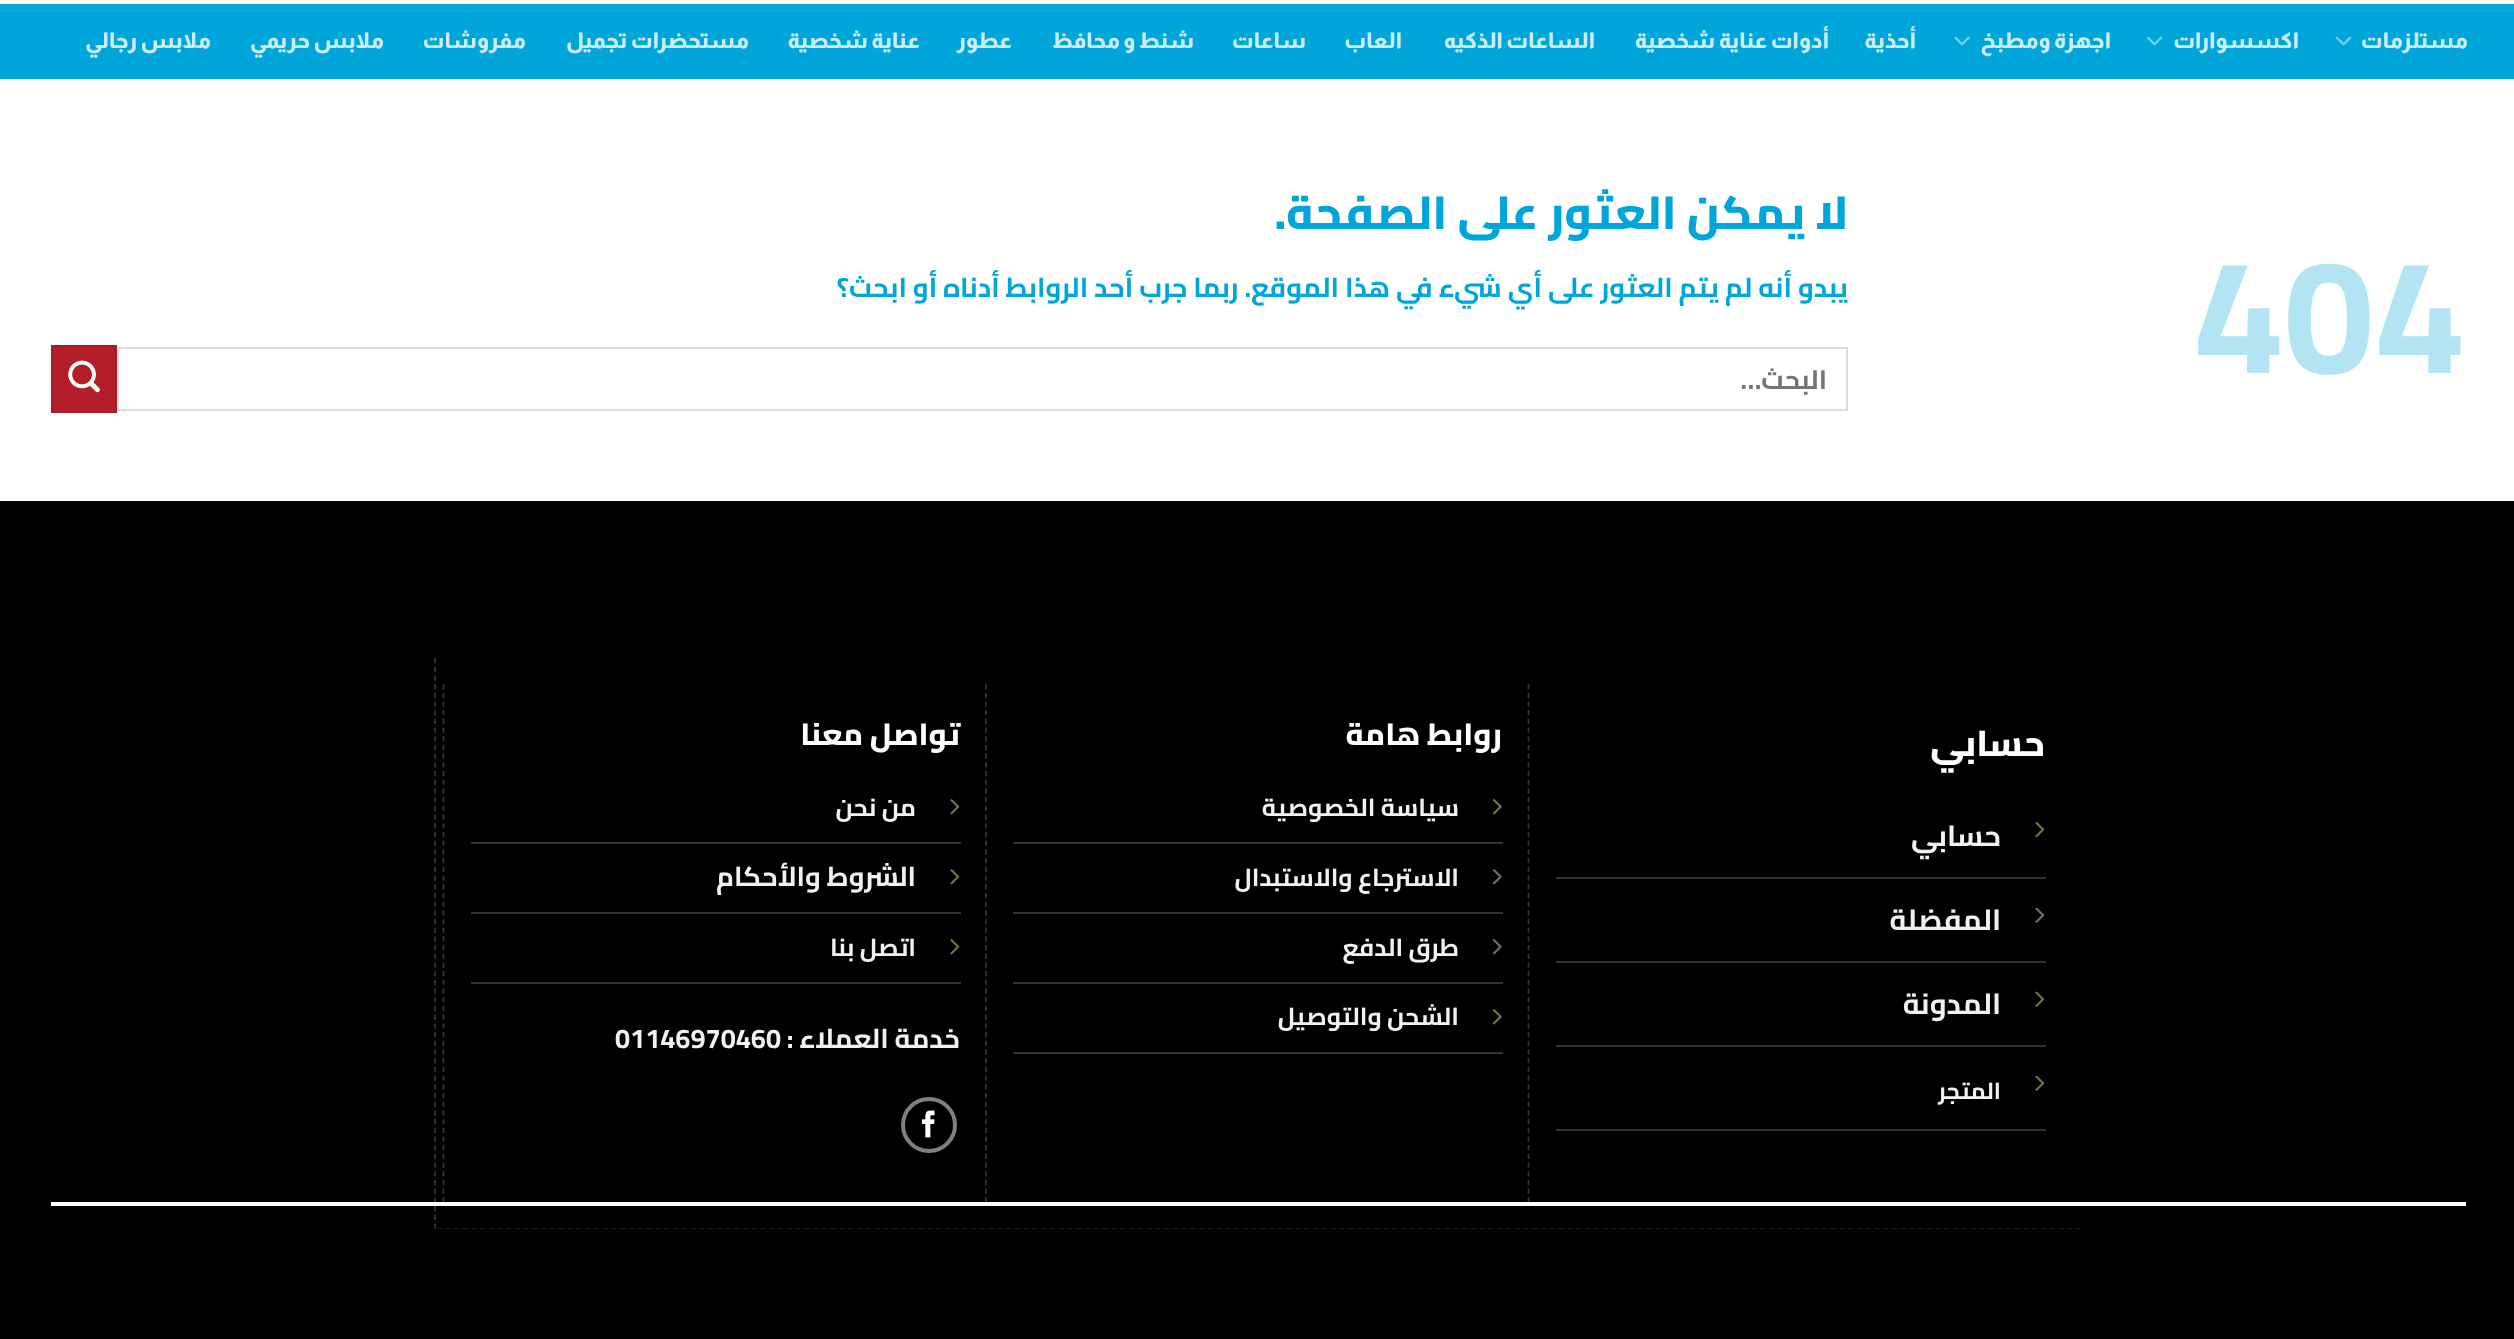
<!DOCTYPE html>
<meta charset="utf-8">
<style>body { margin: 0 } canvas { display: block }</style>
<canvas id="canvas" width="2514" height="1339"></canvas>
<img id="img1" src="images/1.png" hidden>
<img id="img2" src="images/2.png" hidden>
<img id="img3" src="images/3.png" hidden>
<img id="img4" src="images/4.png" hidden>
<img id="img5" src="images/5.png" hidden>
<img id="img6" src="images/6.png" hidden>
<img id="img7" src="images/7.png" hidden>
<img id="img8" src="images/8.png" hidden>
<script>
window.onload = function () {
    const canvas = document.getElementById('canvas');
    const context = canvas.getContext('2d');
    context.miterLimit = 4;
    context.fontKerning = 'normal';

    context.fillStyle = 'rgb(255, 255, 255)';
    context.fillRect(0, 0, 2514, 1339);
    context.fillStyle = 'rgb(0, 166, 218)';
    context.fillRect(0, 4, 2514, 75);
    context.drawImage(document.getElementById('img1'), 2335, 36, 17, 10);
    context.drawImage(document.getElementById('img1'), 2146, 36, 17, 10);
    context.drawImage(document.getElementById('img2'), 1954, 36, 16, 10);
    context.strokeStyle = 'rgb(221, 221, 221)';
    context.lineWidth = 2;
    context.strokeRect(118, 348, 1729, 62);
    context.fillStyle = 'rgb(178, 29, 40)';
    context.beginPath();
    context.rect(52, 346, 64, 66);
    context.fill();
    context.strokeStyle = 'rgb(169, 28, 38)';
    context.stroke();
    context.drawImage(document.getElementById('img3'), 68, 360, 32, 33);
    context.fillStyle = 'rgb(0, 0, 0)';
    context.fillRect(0, 501, 2514, 838);
    context.fillStyle = 'rgb(51, 51, 51)';
    context.fillRect(1556, 877, 490, 2);
    context.drawImage(document.getElementById('img4'), 2035, 821, 10, 17);
    context.fillRect(1556, 961, 490, 2);
    context.drawImage(document.getElementById('img5'), 2035, 907, 10, 16);
    context.fillRect(1556, 1045, 490, 2);
    context.drawImage(document.getElementById('img5'), 2035, 991, 10, 16);
    context.fillRect(1556, 1129, 490, 2);
    context.drawImage(document.getElementById('img5'), 2035, 1075, 10, 16);
    context.beginPath();
    context.moveTo(1528.5, 684);
    context.lineTo(1528.5, 1202);
    context.strokeStyle = 'rgb(51, 51, 51)';
    context.lineWidth = 1.8;
    context.setLineDash([5.25, 3.45]);
    context.stroke();
    context.fillRect(1013, 842, 490, 2);
    context.drawImage(document.getElementById('img6'), 1492, 799, 10, 16);
    context.fillRect(1013, 912, 490, 2);
    context.drawImage(document.getElementById('img6'), 1492, 869, 10, 16);
    context.fillRect(1013, 982, 490, 2);
    context.drawImage(document.getElementById('img6'), 1492, 939, 10, 16);
    context.fillRect(1013, 1052, 490, 2);
    context.drawImage(document.getElementById('img6'), 1492, 1009, 10, 16);
    context.beginPath();
    context.moveTo(986, 684);
    context.lineTo(986, 1202);
    context.stroke();
    context.fillRect(471, 842, 490, 2);
    context.drawImage(document.getElementById('img7'), 950, 799, 10, 16);
    context.fillRect(471, 912, 490, 2);
    context.drawImage(document.getElementById('img7'), 950, 869, 10, 16);
    context.fillRect(471, 982, 490, 2);
    context.drawImage(document.getElementById('img7'), 950, 939, 10, 16);
    context.beginPath();
    context.arc(929, 1125, 26, 0, 2 * Math.PI);
    context.strokeStyle = 'rgb(128, 128, 128)';
    context.lineWidth = 4;
    context.setLineDash([]);
    context.stroke();
    context.drawImage(document.getElementById('img8'), 921, 1110, 14, 28);
    context.beginPath();
    context.moveTo(443.5, 684);
    context.lineTo(443.5, 1202);
    context.strokeStyle = 'rgb(51, 51, 51)';
    context.lineWidth = 1.8;
    context.setLineDash([5.25, 3.45]);
    context.stroke();
    context.beginPath();
    context.moveTo(435, 658);
    context.lineTo(435, 1228.5);
    context.stroke();
    context.save();
    context.beginPath();
    context.rect(25, 658, 2467, 571);
    context.clip();
    context.beginPath();
    context.moveTo(436, 1229.5);
    context.lineTo(2081, 1229.5);
    context.setLineDash([5.25, 3.52]);
    context.stroke();
    context.restore();
    context.fillStyle = 'rgb(255, 255, 255)';
    context.fillRect(51, 1202, 2415, 4);
    context.letterSpacing = '0.4px';
    context.direction = 'rtl';
    context.font = '800 21.75px Almarai';
    context.fillStyle = 'rgb(204, 237, 248)';
    context.fillText('مستلزمات', 2468, 48);
    context.fillText('اكسسوارات', 2299, 48);
    context.wordSpacing = '-1px';
    context.fillText('اجهزة ومطبخ', 2111, 48);
    context.wordSpacing = '0px';
    context.fillText('أحذية', 1916, 48);
    context.wordSpacing = '-1px';
    context.fillText('أدوات عناية شخصية', 1829, 48);
    context.fillText('الساعات الذكيه', 1595, 48);
    context.wordSpacing = '0px';
    context.fillText('العاب', 1402, 48);
    context.fillText('ساعات', 1306, 48);
    context.wordSpacing = '-1px';
    context.fillText('شنط و محافظ', 1194, 48);
    context.wordSpacing = '0px';
    context.fillText('عطور', 1012, 48);
    context.wordSpacing = '-1px';
    context.fillText('عناية شخصية', 920, 48);
    context.fillText('مستحضرات تجميل', 749, 48);
    context.wordSpacing = '0px';
    context.fillText('مفروشات', 526, 48);
    context.wordSpacing = '-1px';
    context.fillText('ملابس حريمي', 384, 48);
    context.fillText('ملابس رجالي', 211, 48);
    context.letterSpacing = '0px';
    context.wordSpacing = '0px';
    context.direction = 'ltr';
    context.font = 'bold 163px Cairo';
    context.fillStyle = 'rgb(179, 228, 244)';
    context.fillText('404', 2193, 373);
    context.direction = 'rtl';
    context.font = '800 46.25px Cairo';
    context.fillStyle = 'rgb(0, 166, 218)';
    context.fillText('لا يمكن العثور على الصفحة.', 1848, 229);
    context.font = 'bold 27.15px Cairo';
    context.fillText('يبدو أنه لم يتم العثور على أي شيء في هذا الموقع. ربما جرب أحد الروابط أدناه أو ابحث؟', 1848, 297);
    context.font = 'bold 26.5px Cairo';
    context.fillStyle = 'rgb(117, 117, 117)';
    context.fillText('البحث…', 1827, 389);
    context.font = '800 36px Cairo';
    context.fillStyle = 'rgb(255, 255, 255)';
    context.fillText('حسابي', 2045, 756);
    context.font = 'bold 29px Cairo';
    context.fillStyle = 'rgb(241, 241, 241)';
    context.fillText('حسابي', 2001, 846);
    context.fillText('المفضلة', 2001, 930);
    context.fillText('المدونة', 2001, 1014);
    context.font = 'bold 23px Cairo';
    context.fillText('المتجر', 2001, 1099);
    context.font = '800 30.5px Cairo';
    context.fillStyle = 'rgb(255, 255, 255)';
    context.fillText('روابط هامة', 1502, 745);
    context.font = 'bold 24.5px Cairo';
    context.fillStyle = 'rgb(241, 241, 241)';
    context.fillText('سياسة الخصوصية', 1459, 816);
    context.fillText('الاسترجاع والاستبدال', 1459, 886);
    context.fillText('طرق الدفع', 1459, 956);
    context.fillText('الشحن والتوصيل', 1459, 1025);
    context.font = '800 30.5px Cairo';
    context.fillStyle = 'rgb(255, 255, 255)';
    context.fillText('تواصل معنا', 960, 745);
    context.font = 'bold 24.5px Cairo';
    context.fillStyle = 'rgb(241, 241, 241)';
    context.fillText('من نحن', 916, 816);
    context.font = 'bold 27.15px Cairo';
    context.fillText('الشروط والأحكام', 916, 886);
    context.font = 'bold 24.5px Cairo';
    context.fillText('اتصل بنا', 916, 956);
    context.font = 'bold 27.15px Cairo';
    context.fillText('خدمة العملاء :', 960, 1048);
    context.direction = 'ltr';
    context.fillText('01146970460', 615, 1048);
};
</script>
